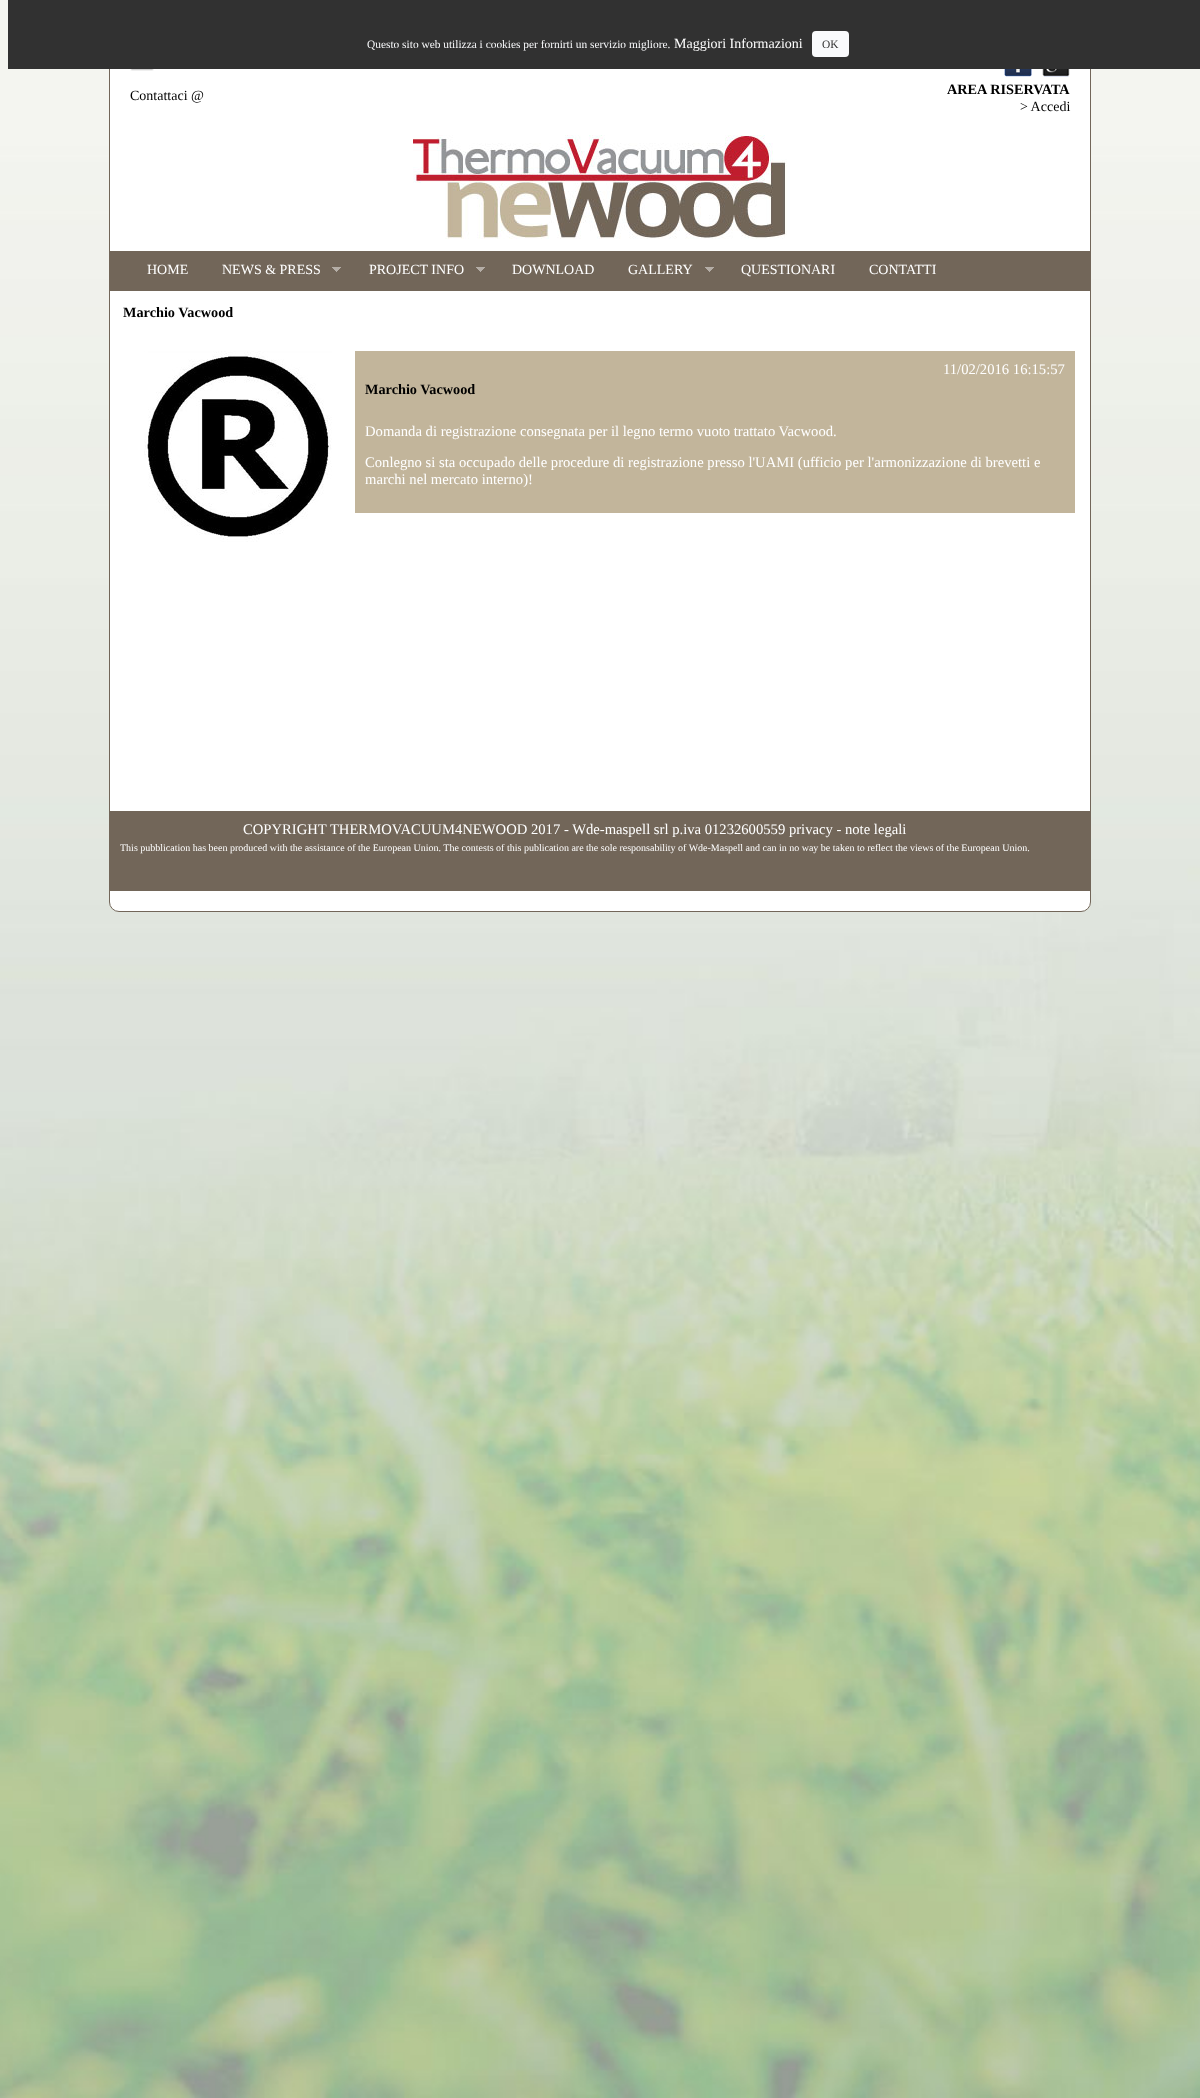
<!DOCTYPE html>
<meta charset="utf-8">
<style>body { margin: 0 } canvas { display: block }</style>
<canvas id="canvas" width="1200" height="2098"></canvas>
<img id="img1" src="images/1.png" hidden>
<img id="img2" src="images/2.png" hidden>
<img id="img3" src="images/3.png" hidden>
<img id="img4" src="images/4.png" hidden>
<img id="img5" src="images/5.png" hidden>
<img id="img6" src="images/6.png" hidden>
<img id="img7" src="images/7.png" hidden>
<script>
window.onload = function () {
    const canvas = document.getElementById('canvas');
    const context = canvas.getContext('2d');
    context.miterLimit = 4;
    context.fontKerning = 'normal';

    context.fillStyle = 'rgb(255, 255, 255)';
    context.fillRect(0, 0, 1200, 2098);
    context.drawImage(document.getElementById('img1'), 0, 0, 1200, 2098);
    context.beginPath();
    context.roundRect(109.5, 28.5, 981, 883, 9.5);
    context.fill();
    context.strokeStyle = 'rgb(114, 102, 89)';
    context.stroke();
    context.fillStyle = 'rgb(49, 49, 49)';
    context.fillRect(8, 0, 1192, 69);
    context.fillStyle = 'rgb(249, 250, 252)';
    context.beginPath();
    context.roundRect(812, 31, 37, 26, 4);
    context.fill();
    context.drawImage(document.getElementById('img2'), 130, 69, 24, 2);
    context.drawImage(document.getElementById('img3'), 1004, 69, 28, 8);
    context.drawImage(document.getElementById('img4'), 1042, 69, 28, 8);
    context.drawImage(document.getElementById('img5'), 413, 135, 374, 104);
    context.fillStyle = 'rgb(114, 102, 89)';
    context.fillRect(110, 251, 980, 40);
    context.drawImage(document.getElementById('img6'), 332, 267, 9, 5);
    context.drawImage(document.getElementById('img6'), 476, 267, 9, 5);
    context.drawImage(document.getElementById('img6'), 705, 267, 9, 5);
    context.drawImage(document.getElementById('img7'), 144, 351, 188, 191);
    context.fillStyle = 'rgb(194, 181, 155)';
    context.fillRect(355, 351, 720, 162);
    context.fillStyle = 'rgb(114, 102, 89)';
    context.fillRect(110, 811, 980, 80);
    context.font = '11.4px Liberation Serif';
    context.fillStyle = 'rgb(249, 250, 252)';
    context.fillText('Questo sito web utilizza i cookies per fornirti un servizio migliore.', 367, 48);
    context.font = '14px Liberation Serif';
    context.fillStyle = 'rgb(255, 255, 255)';
    context.fillText('Maggiori Informazioni', 674, 48);
    context.font = '11.4px Liberation Serif';
    context.fillStyle = 'rgb(49, 49, 49)';
    context.fillText('OK', 822, 48);
    context.font = '14px Liberation Serif';
    context.fillStyle = 'rgb(0, 0, 0)';
    context.fillText('Contattaci @', 130, 100);
    context.font = 'bold 14.25px Liberation Serif';
    context.fillText('AREA RISERVATA', 947, 94);
    context.font = '14px Liberation Serif';
    context.fillText('> Accedi', 1020, 111);
    context.fillStyle = 'rgb(255, 255, 255)';
    context.fillText('HOME', 147, 274);
    context.fillText('NEWS & PRESS', 222, 274);
    context.fillText('PROJECT INFO', 369, 274);
    context.fillText('DOWNLOAD', 512, 274);
    context.fillText('GALLERY', 628, 274);
    context.fillText('QUESTIONARI', 741, 274);
    context.fillText('CONTATTI', 869, 274);
    context.font = 'bold 14.25px Liberation Serif';
    context.fillStyle = 'rgb(0, 0, 0)';
    context.fillText('Marchio Vacwood', 123, 317);
    context.font = '14.65px Liberation Serif';
    context.fillStyle = 'rgb(255, 255, 255)';
    context.fillText('11/02/2016 16:15:57', 943, 374);
    context.font = 'bold 14.25px Liberation Serif';
    context.fillStyle = 'rgb(0, 0, 0)';
    context.fillText('Marchio Vacwood', 365, 394);
    context.font = '14.65px Liberation Serif';
    context.fillStyle = 'rgb(255, 255, 255)';
    context.fillText('Domanda di registrazione consegnata per il legno termo vuoto trattato Vacwood.', 365, 436);
    context.fillText('Conlegno si sta occupado delle procedure di registrazione presso l\'UAMI (ufficio per l\'armonizzazione di brevetti e', 365, 467);
    context.fillText('marchi nel mercato interno)!', 365, 484);
    context.fillText('COPYRIGHT THERMOVACUUM4NEWOOD 2017 - Wde-maspell srl p.iva 01232600559 privacy - note legali', 243, 834);
    context.font = '10px Liberation Serif';
    context.fillText('This pubblication has been produced with the assistance of the European Union. The contests of this publication are the sole responsability of Wde-Maspell and can in no way be taken to reflect the views of the European Union.', 120, 851);
};
</script>
